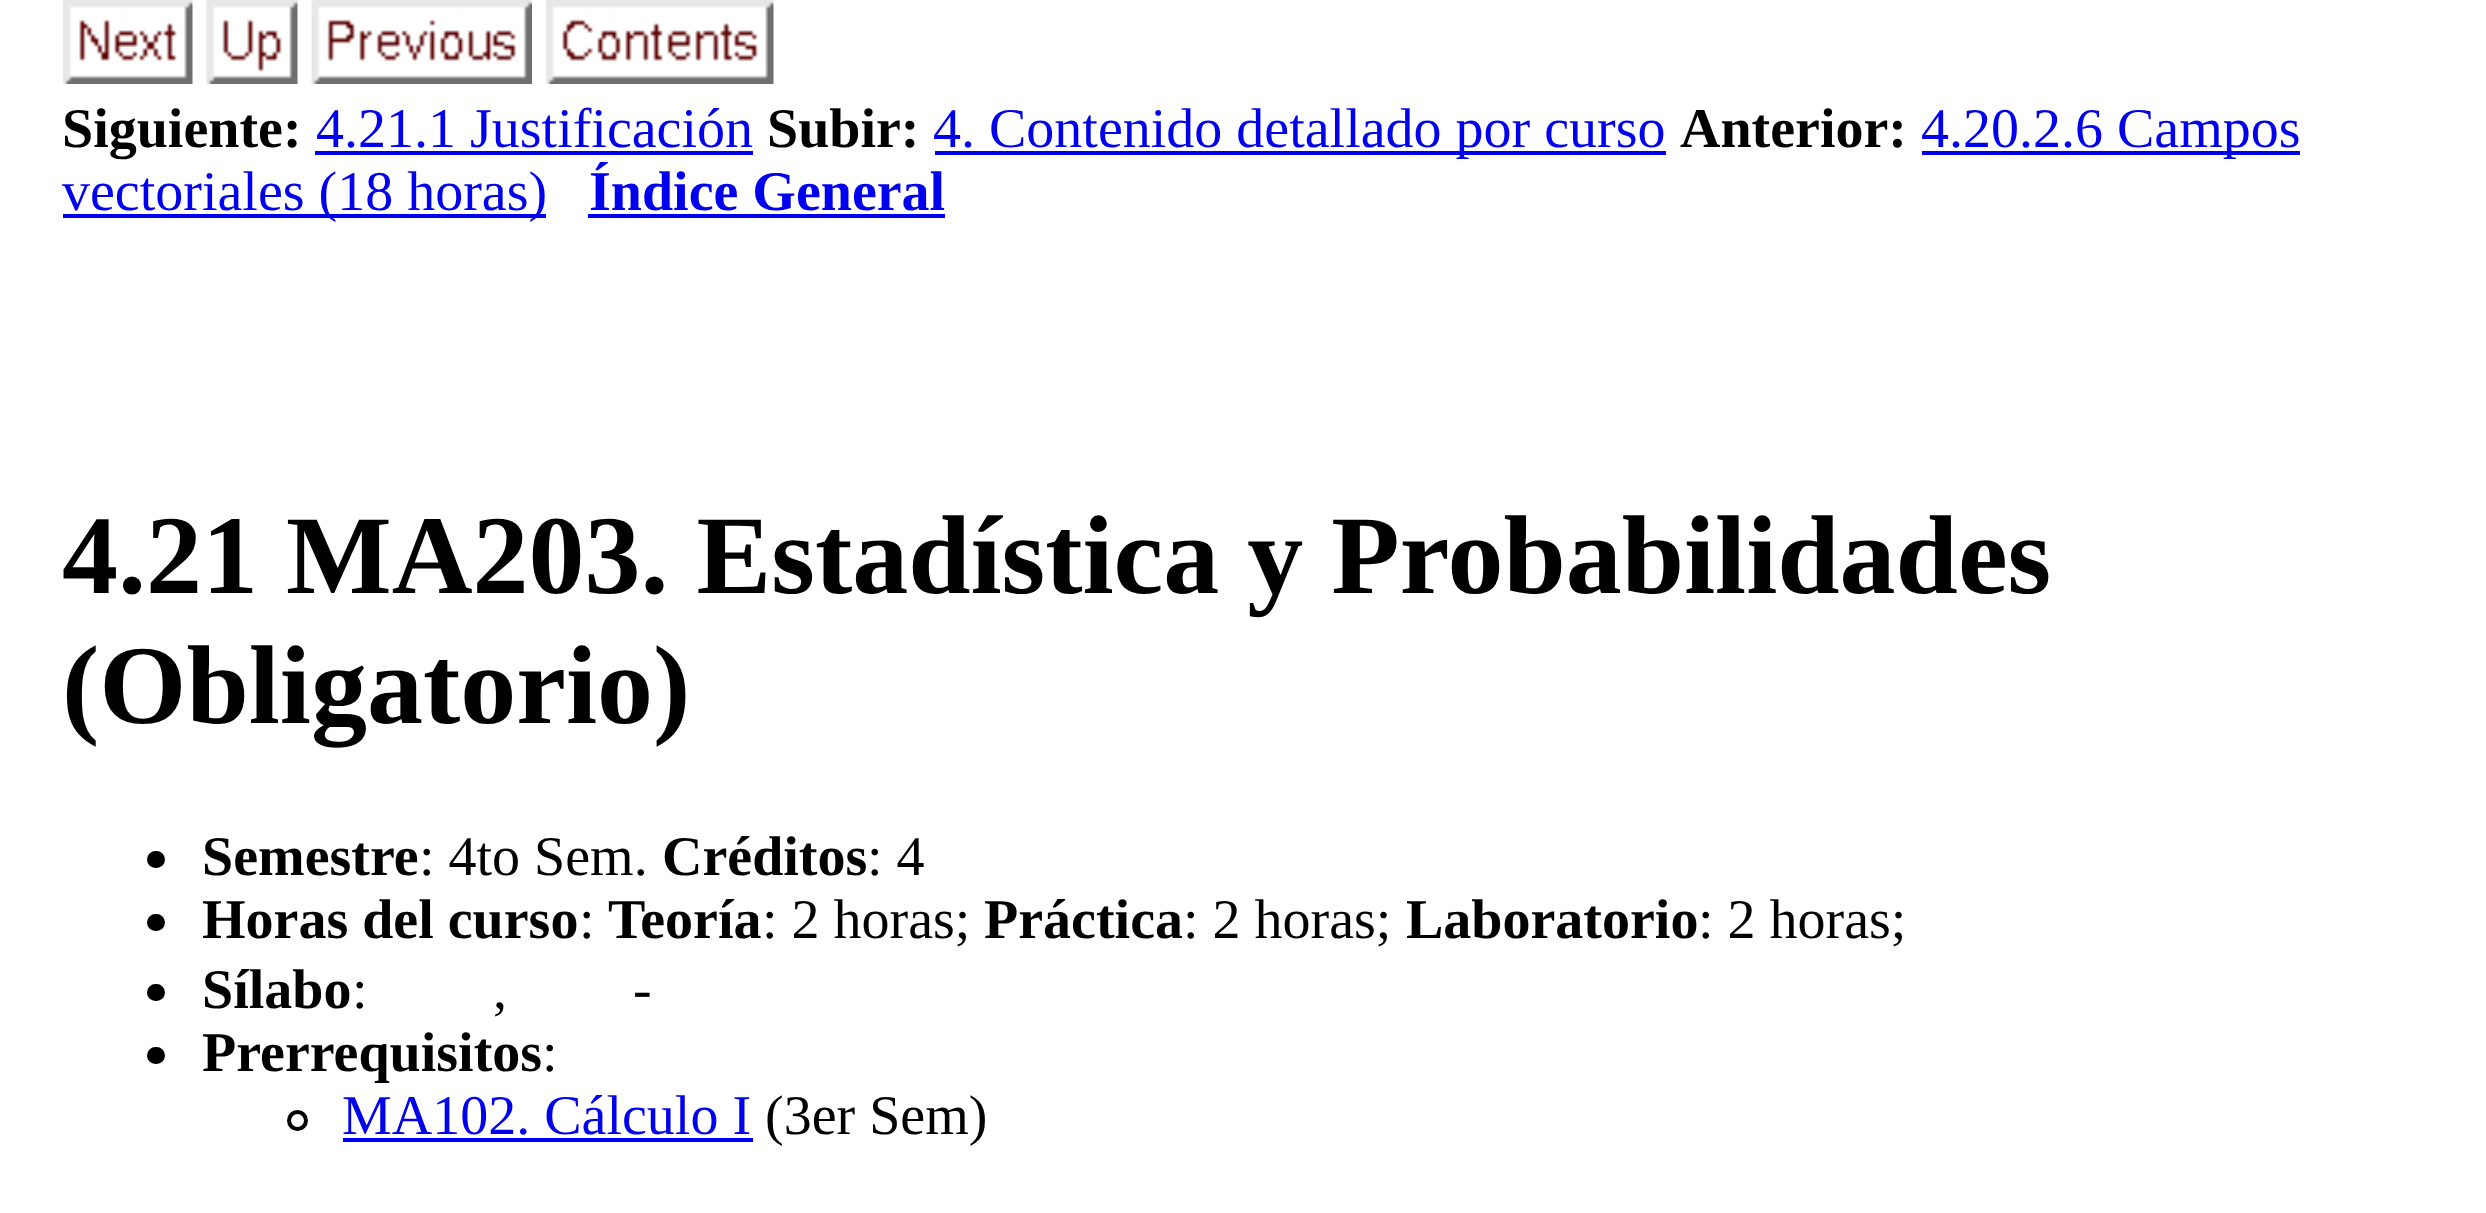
<!DOCTYPE html>
<meta charset="utf-8">
<style>body { margin: 0 } canvas { display: block }</style>
<canvas id="canvas" width="2486" height="1213"></canvas>
<img id="img1" src="images/1.png" hidden>
<img id="img2" src="images/2.png" hidden>
<img id="img3" src="images/3.png" hidden>
<img id="img4" src="images/4.png" hidden>
<script>
window.onload = function () {
    const canvas = document.getElementById('canvas');
    const context = canvas.getContext('2d');
    context.miterLimit = 4;
    context.fontKerning = 'normal';

    context.fillStyle = 'rgb(255, 255, 255)';
    context.fillRect(0, 0, 2486, 1213);
    context.drawImage(document.getElementById('img1'), 63, 0, 130, 84);
    context.drawImage(document.getElementById('img2'), 206, 0, 92, 84);
    context.drawImage(document.getElementById('img3'), 311, 0, 221, 84);
    context.drawImage(document.getElementById('img4'), 546, 0, 228, 84);
    context.fillStyle = 'rgb(0, 0, 238)';
    context.fillRect(315, 151, 438, 4);
    context.fillRect(935, 151, 731, 4);
    context.fillRect(1922, 151, 378, 4);
    context.fillRect(63, 214, 483, 4);
    context.fillRect(588, 214, 357, 4);
    context.fillStyle = 'rgb(0, 0, 0)';
    context.beginPath();
    context.roundRect(147, 851, 18, 17, 8.5);
    context.fill();
    context.beginPath();
    context.roundRect(147, 914, 18, 17, 8.5);
    context.fill();
    context.beginPath();
    context.roundRect(147, 984, 18, 17, 8.5);
    context.fill();
    context.beginPath();
    context.roundRect(147, 1047, 18, 17, 8.5);
    context.fill();
    context.beginPath();
    context.arc(297.5, 1120.5, 8.5, 0, 2 * Math.PI);
    context.strokeStyle = 'rgb(0, 0, 0)';
    context.lineWidth = 4;
    context.stroke();
    context.fillStyle = 'rgb(0, 0, 238)';
    context.fillRect(343, 1138, 410, 4);
    context.font = 'bold 56px Liberation Serif';
    context.fillStyle = 'rgb(0, 0, 0)';
    context.fillText('Siguiente:', 62, 147);
    context.font = '56px Liberation Serif';
    context.fillStyle = 'rgb(0, 0, 238)';
    context.fillText('4.21.1 Justificación', 316, 147);
    context.font = 'bold 56px Liberation Serif';
    context.fillStyle = 'rgb(0, 0, 0)';
    context.fillText('Subir:', 767, 147);
    context.font = '56px Liberation Serif';
    context.fillStyle = 'rgb(0, 0, 238)';
    context.fillText('4. Contenido detallado por curso', 933, 147);
    context.font = 'bold 56px Liberation Serif';
    context.fillStyle = 'rgb(0, 0, 0)';
    context.fillText('Anterior:', 1680, 147);
    context.font = '56px Liberation Serif';
    context.fillStyle = 'rgb(0, 0, 238)';
    context.fillText('4.20.2.6 Campos', 1921, 147);
    context.fillText('vectoriales (18 horas)', 62, 210);
    context.font = 'bold 56px Liberation Serif';
    context.fillText('Índice General', 589, 210);
    context.font = 'bold 112px Liberation Serif';
    context.fillStyle = 'rgb(0, 0, 0)';
    context.fillText('4.21 MA203. Estadística y Probabilidades', 62, 593);
    context.fillText('(Obligatorio)', 62, 723);
    context.font = 'bold 56px Liberation Serif';
    context.fillText('Semestre', 202, 875);
    context.font = '56px Liberation Serif';
    context.fillText(': 4to Sem.', 419, 875);
    context.font = 'bold 56px Liberation Serif';
    context.fillText('Créditos', 662, 875);
    context.font = '56px Liberation Serif';
    context.fillText(': 4', 867, 875);
    context.font = 'bold 56px Liberation Serif';
    context.fillText('Horas del curso', 202, 938);
    context.font = '56px Liberation Serif';
    context.fillText(':', 579, 938);
    context.font = 'bold 56px Liberation Serif';
    context.fillText('Teoría', 608, 938);
    context.font = '56px Liberation Serif';
    context.fillText(': 2 horas;', 762, 938);
    context.font = 'bold 56px Liberation Serif';
    context.fillText('Práctica', 984, 938);
    context.font = '56px Liberation Serif';
    context.fillText(': 2 horas;', 1183, 938);
    context.font = 'bold 56px Liberation Serif';
    context.fillText('Laboratorio', 1406, 938);
    context.font = '56px Liberation Serif';
    context.fillText(': 2 horas;', 1698, 938);
    context.font = 'bold 56px Liberation Serif';
    context.fillText('Sílabo', 202, 1008);
    context.font = '56px Liberation Serif';
    context.fillText(':', 352, 1008);
    context.fillText('-', 633, 1008);
    context.fillText(',', 493, 1008);
    context.font = 'bold 56px Liberation Serif';
    context.fillText('Prerrequisitos', 202, 1071);
    context.font = '56px Liberation Serif';
    context.fillText(':', 542, 1071);
    context.fillStyle = 'rgb(0, 0, 238)';
    context.fillText('MA102. Cálculo I', 342, 1134);
    context.fillStyle = 'rgb(0, 0, 0)';
    context.fillText('(3er Sem)', 765, 1134);
};
</script>
